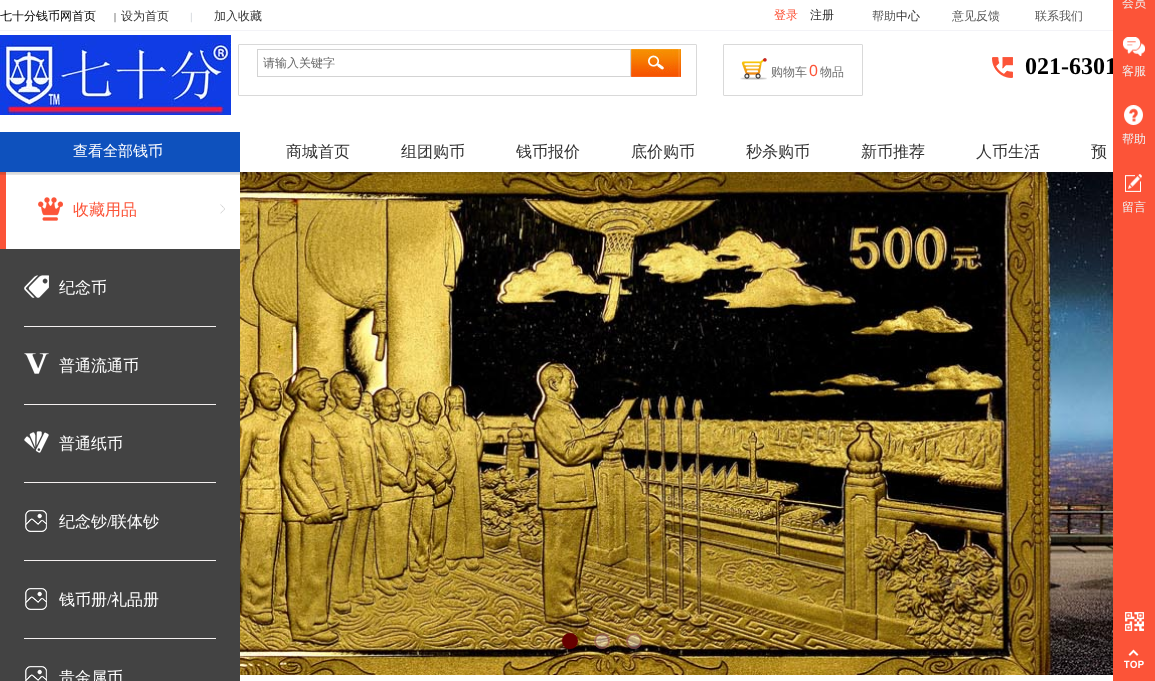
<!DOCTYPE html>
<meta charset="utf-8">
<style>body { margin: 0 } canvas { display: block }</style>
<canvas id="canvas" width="1155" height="681"></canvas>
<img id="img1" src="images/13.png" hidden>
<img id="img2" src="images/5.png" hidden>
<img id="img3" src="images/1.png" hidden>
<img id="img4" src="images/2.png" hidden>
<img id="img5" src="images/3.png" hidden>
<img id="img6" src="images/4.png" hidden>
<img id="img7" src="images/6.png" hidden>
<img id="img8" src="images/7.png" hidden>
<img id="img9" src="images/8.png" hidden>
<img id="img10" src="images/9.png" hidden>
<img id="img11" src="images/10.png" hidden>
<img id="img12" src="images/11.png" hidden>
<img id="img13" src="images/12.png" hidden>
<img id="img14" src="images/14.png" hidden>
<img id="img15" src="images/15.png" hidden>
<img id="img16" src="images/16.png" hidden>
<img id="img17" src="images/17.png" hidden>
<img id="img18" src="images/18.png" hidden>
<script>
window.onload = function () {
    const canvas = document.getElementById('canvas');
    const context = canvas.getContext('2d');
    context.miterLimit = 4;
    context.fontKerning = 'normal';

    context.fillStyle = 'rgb(255, 255, 255)';
    context.fillRect(0, 0, 1155, 681);
    context.fillStyle = 'rgb(252, 84, 56)';
    context.fillRect(0, 171, 6, 78);
    context.drawImage(document.getElementById('img1'), 240, 172, 873, 503);
    context.drawImage(document.getElementById('img2'), 0, 30, 1113, 145);
    context.drawImage(document.getElementById('img3'), 0, 35, 231, 80);
    context.beginPath();
    context.roundRect(238.5, 44.5, 458, 51, 0.5);
    context.strokeStyle = 'rgb(217, 217, 217)';
    context.stroke();
    context.beginPath();
    context.roundRect(723.5, 44.5, 139, 51, 0.5);
    context.stroke();
    context.strokeStyle = 'rgb(211, 211, 211)';
    context.strokeRect(257.5, 49.5, 373, 27);
    context.drawImage(document.getElementById('img4'), 631, 49, 50, 28);
    context.drawImage(document.getElementById('img5'), 740, 58, 27, 22);
    context.drawImage(document.getElementById('img6'), 992, 57, 21, 21);
    context.fillStyle = 'rgb(14, 81, 189)';
    context.fillRect(0, 132, 240, 40);
    context.drawImage(document.getElementById('img7'), 38, 197, 25, 24);
    context.drawImage(document.getElementById('img8'), 220, 204, 5, 10);
    context.fillStyle = 'rgb(67, 67, 67)';
    context.fillRect(0, 249, 240, 432);
    context.fillStyle = 'rgb(244, 240, 240)';
    context.fillRect(24, 326, 192, 1);
    context.drawImage(document.getElementById('img9'), 24, 275, 25, 23);
    context.fillRect(24, 404, 192, 1);
    context.drawImage(document.getElementById('img10'), 24, 353, 25, 21);
    context.fillRect(24, 482, 192, 1);
    context.drawImage(document.getElementById('img11'), 24, 431, 25, 22);
    context.fillRect(24, 560, 192, 1);
    context.drawImage(document.getElementById('img12'), 25, 510, 22, 22);
    context.fillRect(24, 638, 192, 1);
    context.drawImage(document.getElementById('img12'), 25, 588, 22, 22);
    context.drawImage(document.getElementById('img13'), 25, 666, 22, 15);
    context.fillStyle = 'rgb(102, 0, 0)';
    context.beginPath();
    context.arc(570, 641, 7, 0, 2 * Math.PI);
    context.fill();
    context.strokeStyle = 'rgb(102, 0, 0)';
    context.lineWidth = 2;
    context.stroke();
    context.fillStyle = 'rgba(255, 255, 255, 0.4)';
    context.beginPath();
    context.arc(602, 641, 8, 0, 2 * Math.PI);
    context.fill();
    context.beginPath();
    context.arc(602, 641, 7, 0, 2 * Math.PI);
    context.strokeStyle = 'rgba(102, 0, 0, 0.4)';
    context.stroke();
    context.beginPath();
    context.arc(634, 641, 8, 0, 2 * Math.PI);
    context.fill();
    context.beginPath();
    context.arc(634, 641, 7, 0, 2 * Math.PI);
    context.stroke();
    context.font = '500 12px WenQuanYi Zen Hei';
    context.fillStyle = 'rgb(0, 0, 0)';
    context.fillText('七十分钱币网首页', 0, 20);
    context.font = '10px Liberation Serif';
    context.fillText('|', 114, 20);
    context.font = '500 12px WenQuanYi Zen Hei';
    context.fillStyle = 'rgb(51, 51, 51)';
    context.fillText('设为首页', 121, 20);
    context.font = '10px Liberation Sans';
    context.fillStyle = 'rgb(209, 213, 219)';
    context.fillText('|', 190, 20);
    context.font = '500 12px WenQuanYi Zen Hei';
    context.fillStyle = 'rgb(51, 51, 51)';
    context.fillText('加入收藏', 214, 20);
    context.fillStyle = 'rgb(252, 84, 56)';
    context.fillText('登录', 774, 19);
    context.fillStyle = 'rgb(51, 51, 51)';
    context.fillText('注册', 810, 19);
    context.fillStyle = 'rgb(90, 90, 90)';
    context.fillText('帮助', 872, 20);
    context.fillStyle = 'rgb(51, 51, 51)';
    context.fillText('中心', 896, 20);
    context.fillStyle = 'rgb(90, 90, 90)';
    context.fillText('意见反馈', 952, 20);
    context.fillText('联系我们', 1035, 20);
    context.fillStyle = 'rgb(102, 102, 102)';
    context.fillText('请输入关键字', 263, 67);
    context.fillStyle = 'rgb(109, 109, 109)';
    context.fillText('购物车', 771, 76);
    context.font = '16px Liberation Sans';
    context.fillStyle = 'rgb(252, 84, 56)';
    context.fillText('0', 809, 76);
    context.font = '500 12px WenQuanYi Zen Hei';
    context.fillStyle = 'rgb(109, 109, 109)';
    context.fillText('物品', 820, 76);
    context.font = 'bold 24px Liberation Serif';
    context.fillStyle = 'rgb(0, 0, 0)';
    context.fillText('021-6301', 1025, 74);
    context.font = '500 15px WenQuanYi Zen Hei';
    context.fillStyle = 'rgb(255, 255, 255)';
    context.fillText('查看全部钱币', 73, 156);
    context.font = '500 16px WenQuanYi Zen Hei';
    context.fillStyle = 'rgb(51, 51, 51)';
    context.fillText('商城首页', 286, 157);
    context.fillText('组团购币', 401, 157);
    context.fillText('钱币报价', 516, 157);
    context.fillText('底价购币', 631, 157);
    context.fillText('秒杀购币', 746, 157);
    context.fillText('新币推荐', 861, 157);
    context.fillText('人币生活', 976, 157);
    context.fillText('预', 1091, 157);
    context.fillStyle = 'rgb(252, 84, 56)';
    context.fillText('收藏用品', 73, 215);
    context.fillStyle = 'rgb(255, 255, 255)';
    context.fillText('纪念币', 59, 293);
    context.fillText('普通流通币', 59, 371);
    context.fillText('普通纸币', 59, 449);
    context.fillText('纪念钞', 59, 527);
    context.font = '16px Liberation Serif';
    context.fillText('/', 107, 527);
    context.font = '500 16px WenQuanYi Zen Hei';
    context.fillText('联体钞', 111, 527);
    context.fillText('钱币册', 59, 605);
    context.font = '16px Liberation Serif';
    context.fillText('/', 107, 605);
    context.font = '500 16px WenQuanYi Zen Hei';
    context.fillText('礼品册', 111, 605);
    context.fillText('贵金属币', 59, 683);
    context.fillStyle = 'rgb(252, 84, 56)';
    context.fillRect(1113, 0, 42, 681);
    context.font = '500 12px WenQuanYi Zen Hei';
    context.fillStyle = 'rgb(239, 239, 239)';
    context.fillText('会员', 1122, 7);
    context.drawImage(document.getElementById('img14'), 1123, 37, 22, 19);
    context.fillText('客服', 1122, 75);
    context.drawImage(document.getElementById('img15'), 1124, 105, 19, 20);
    context.fillText('帮助', 1122, 143);
    context.drawImage(document.getElementById('img16'), 1125, 174, 17, 18);
    context.fillText('留言', 1122, 211);
    context.drawImage(document.getElementById('img17'), 1125, 612, 19, 19);
    context.drawImage(document.getElementById('img18'), 1124, 649, 20, 19);
};
</script>
